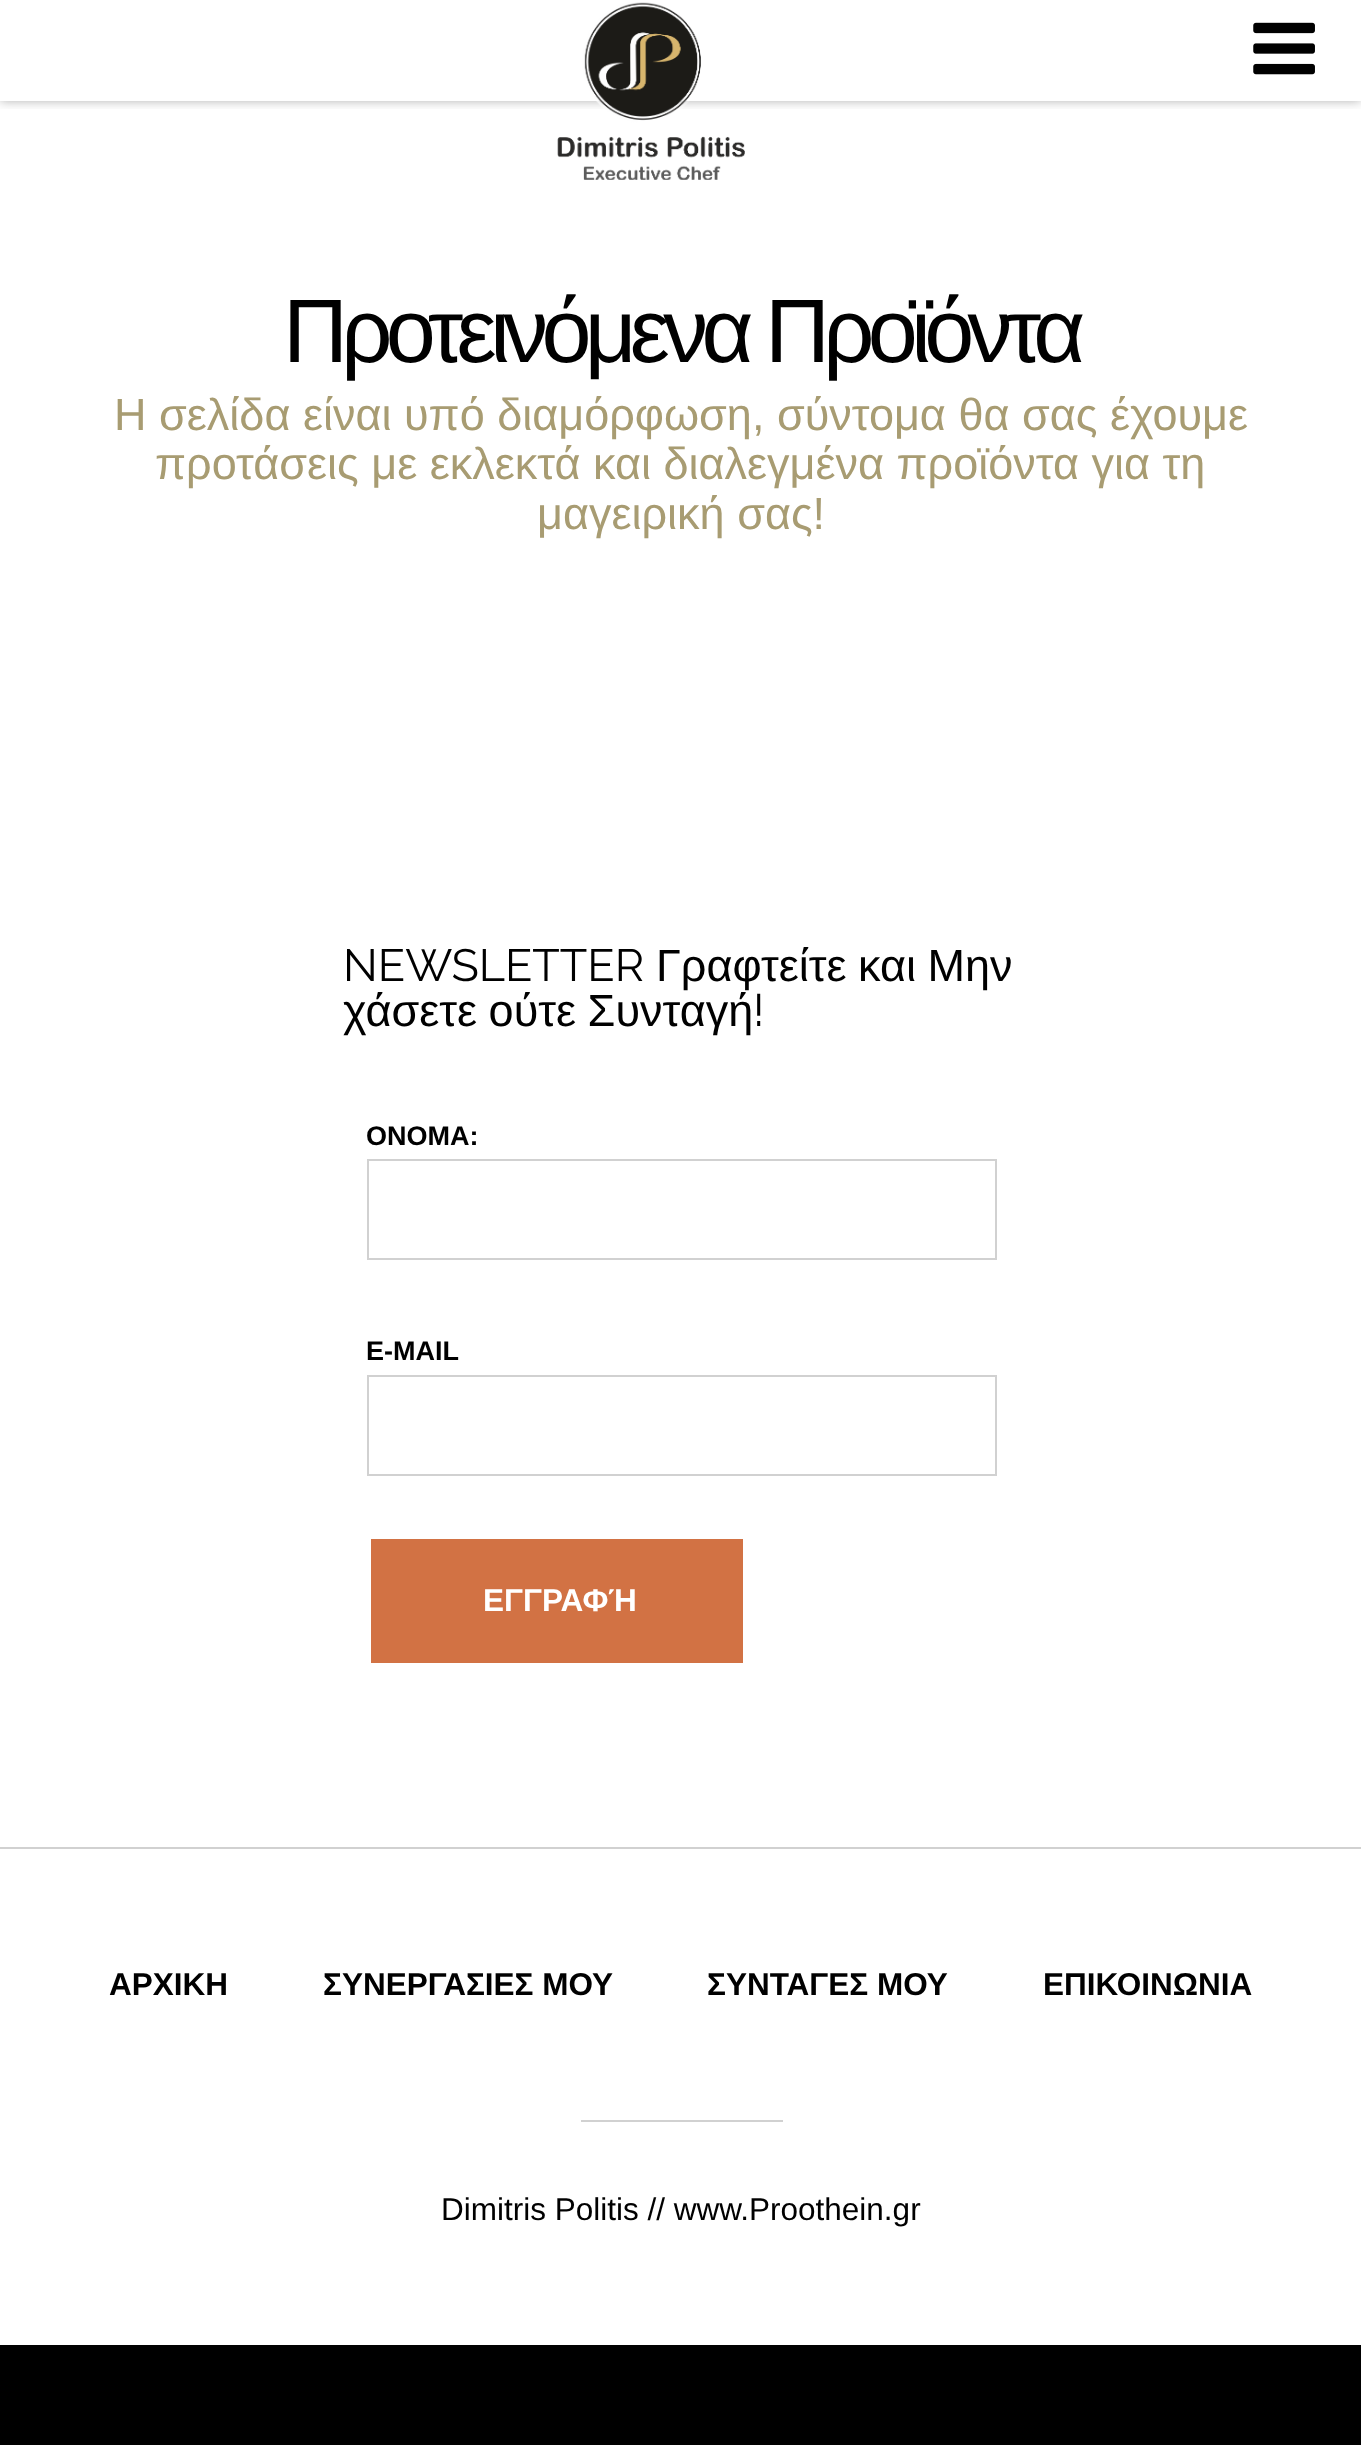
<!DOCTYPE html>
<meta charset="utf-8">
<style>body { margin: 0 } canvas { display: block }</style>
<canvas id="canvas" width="1361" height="2445"></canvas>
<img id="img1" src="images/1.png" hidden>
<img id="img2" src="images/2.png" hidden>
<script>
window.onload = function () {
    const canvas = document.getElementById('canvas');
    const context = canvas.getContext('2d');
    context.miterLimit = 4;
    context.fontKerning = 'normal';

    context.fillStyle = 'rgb(0, 0, 0)';
    context.fillRect(0, 0, 1361, 2445);
    context.fillStyle = 'rgb(255, 255, 255)';
    context.fillRect(0, 0, 1361, 2345);
    context.save();
    context.beginPath();
    context.rect(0, 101, 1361, 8);
    context.clip();
    context.fillStyle = 'rgba(0, 0, 0, 0.3)';
    context.filter = 'blur(5.5px)';
    context.beginPath();
    context.rect(0, 0, 1361, 101);
    context.fill();
    context.filter = 'none';
    context.restore();
    context.drawImage(document.getElementById('img1'), 557, 2, 188, 178);
    context.drawImage(document.getElementById('img2'), 1253, 22, 62, 53);
    context.strokeStyle = 'rgb(209, 209, 209)';
    context.lineWidth = 2;
    context.strokeRect(368, 1160, 628, 99);
    context.strokeRect(368, 1376, 628, 99);
    context.fillStyle = 'rgb(210, 114, 68)';
    context.fillRect(371, 1539, 372, 124);
    context.fillStyle = 'rgb(209, 209, 209)';
    context.fillRect(0, 1847, 1361, 2);
    context.fillRect(581, 2120, 202, 2);
    context.letterSpacing = '-6.75px';
    context.font = '90px Liberation Sans';
    context.fillStyle = 'rgb(0, 0, 0)';
    context.fillText('Προτεινόμενα Προϊόντα', 283, 362);
    context.letterSpacing = '0px';
    context.font = '45px Liberation Sans';
    context.fillStyle = 'rgb(168, 156, 114)';
    context.fillText('Η σελίδα είναι υπό διαμόρφωση, σύντομα θα σας έχουμε', 114, 430);
    context.fillText('προτάσεις με εκλεκτά και διαλεγμένα προϊόντα για τη', 155, 479);
    context.fillText('μαγειρική σας!', 537, 529);
    context.font = '45px Raleway';
    context.fillStyle = 'rgb(0, 0, 0)';
    context.fillText('NEWSLETTER', 343, 981);
    context.wordSpacing = '-1px';
    context.font = '45px Liberation Sans';
    context.fillText('Γραφτείτε και Μην', 656, 981);
    context.fillText('χάσετε ούτε Συνταγή', 343, 1026);
    context.wordSpacing = '0px';
    context.font = '45px Raleway';
    context.fillText('!', 753, 1026);
    context.font = 'bold 27px Liberation Sans';
    context.fillText('ΟΝΟΜΑ:', 366, 1145);
    context.fillText('E-MAIL', 366, 1360);
    context.font = 'bold 31.5px Liberation Sans';
    context.fillStyle = 'rgb(255, 255, 255)';
    context.fillText('ΕΓΓΡΑΦΉ', 483, 1611);
    context.fillStyle = 'rgb(0, 0, 0)';
    context.fillText('ΑΡΧΙΚΗ', 109, 1995);
    context.fillText('ΣΥΝΕΡΓΑΣΙΕΣ ΜΟΥ', 323, 1995);
    context.fillText('ΣΥΝΤΑΓΕΣ ΜΟΥ', 707, 1995);
    context.fillText('ΕΠΙΚΟΙΝΩΝΙΑ', 1043, 1995);
    context.font = '31.5px Liberation Sans';
    context.fillText('Dimitris Politis // www.Proothein.gr', 441, 2220);
};
</script>
